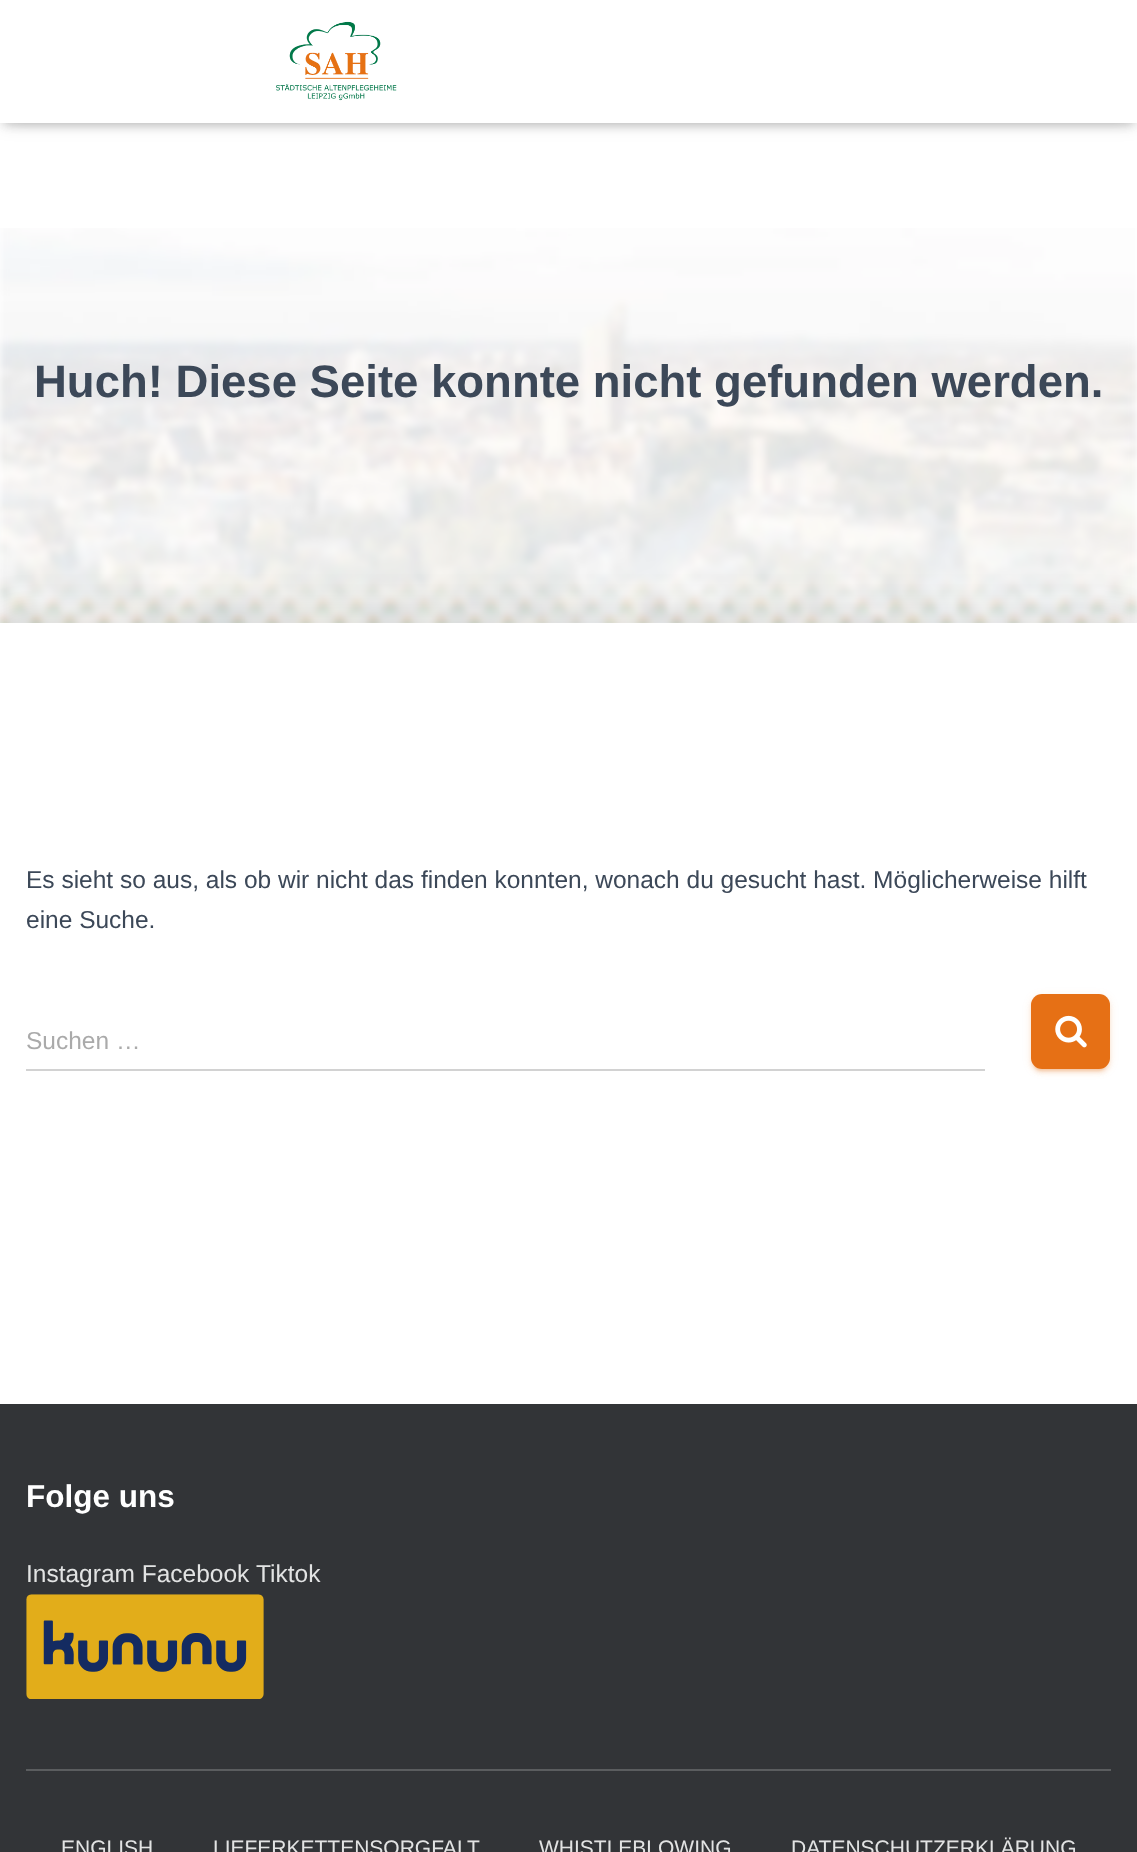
<!DOCTYPE html>
<meta charset="utf-8">
<style>body { margin: 0 } canvas { display: block }</style>
<canvas id="canvas" width="1137" height="1852"></canvas>
<img id="img1" src="images/1.png" hidden>
<img id="img2" src="images/2.png" hidden>
<img id="img3" src="images/3.png" hidden>
<img id="img4" src="images/4.png" hidden>
<img id="img5" src="images/5.png" hidden>
<script>
window.onload = function () {
    const canvas = document.getElementById('canvas');
    const context = canvas.getContext('2d');
    context.miterLimit = 4;
    context.fontKerning = 'normal';

    context.fillStyle = 'rgb(255, 255, 255)';
    context.fillRect(0, 0, 1137, 1852);
    context.drawImage(document.getElementById('img1'), 0, 507, 1137, 116);
    context.fillStyle = 'rgba(0, 0, 0, 0.1)';
    context.filter = 'blur(4.5px)';
    context.beginPath();
    context.rect(4, 11, 1130, 115);
    context.fill();
    context.filter = 'none';
    context.fillStyle = 'rgba(0, 0, 0, 0.12)';
    context.filter = 'blur(9px)';
    context.beginPath();
    context.rect(0, 2, 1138, 122);
    context.fill();
    context.filter = 'none';
    context.fillStyle = 'rgba(0, 0, 0, 0.42)';
    context.filter = 'blur(9px)';
    context.beginPath();
    context.rect(11, 12, 1116, 102);
    context.fill();
    context.filter = 'none';
    context.fillStyle = 'rgb(255, 255, 255)';
    context.fillRect(0, 0, 1137, 123);
    context.drawImage(document.getElementById('img2'), 276, 21, 121, 80);
    context.drawImage(document.getElementById('img3'), 0, 228, 1137, 395);
    context.fillStyle = 'rgba(0, 0, 0, 0.12)';
    context.filter = 'blur(26px)';
    context.beginPath();
    context.rect(-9, 625, 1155, 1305);
    context.fill();
    context.filter = 'none';
    context.fillStyle = 'rgb(255, 255, 255)';
    context.fillRect(0, 623, 1137, 781);
    context.fillStyle = 'rgb(210, 210, 210)';
    context.fillRect(26, 1069, 959, 2);
    context.fillStyle = 'rgba(230, 112, 21, 0.12)';
    context.filter = 'blur(4.5px)';
    context.beginPath();
    context.roundRect(1031, 996, 79, 75, 11);
    context.fill();
    context.filter = 'none';
    context.fillStyle = 'rgba(230, 112, 21, 0.2)';
    context.filter = 'blur(1px)';
    context.beginPath();
    context.roundRect(1034, 1003, 72, 68, 7);
    context.fill();
    context.filter = 'none';
    context.fillStyle = 'rgba(230, 112, 21, 0.14)';
    context.filter = 'blur(2px)';
    context.beginPath();
    context.roundRect(1031, 998, 79, 75, 11);
    context.fill();
    context.filter = 'none';
    context.fillStyle = 'rgb(230, 112, 21)';
    context.beginPath();
    context.roundRect(1031, 994, 79, 75, 11);
    context.fill();
    context.drawImage(document.getElementById('img4'), 1055, 1015, 32, 33);
    context.fillStyle = 'rgb(50, 52, 55)';
    context.fillRect(0, 1404, 1137, 448);
    context.drawImage(document.getElementById('img5'), 26, 1594, 238, 105);
    context.fillStyle = 'rgb(91, 93, 95)';
    context.fillRect(26, 1769, 1085, 2);
    context.font = 'bold 45.5px Liberation Sans';
    context.fillStyle = 'rgb(60, 72, 88)';
    context.fillText('Huch! Diese Seite konnte nicht gefunden werden.', 34, 397);
    context.font = '24.5px Liberation Sans';
    context.fillText('Es sieht so aus, als ob wir nicht das finden konnten, wonach du gesucht hast. Möglicherweise hilft', 26, 888);
    context.fillText('eine Suche.', 26, 928);
    context.fillStyle = 'rgb(170, 170, 170)';
    context.fillText('Suchen …', 26, 1049);
    context.font = 'bold 31.5px Liberation Sans';
    context.fillStyle = 'rgb(255, 255, 255)';
    context.fillText('Folge uns', 26, 1507);
    context.font = '24.5px Liberation Sans';
    context.fillStyle = 'rgb(226, 227, 227)';
    context.fillText('Instagram Facebook', 26, 1582);
    context.fillText('Tiktok', 256, 1582);
    context.font = '21px Liberation Sans';
    context.fillText('ENGLISH', 61, 1855);
    context.fillText('LIEFERKETTENSORGFALT', 213, 1855);
    context.fillText('WHISTLEBLOWING', 539, 1855);
    context.fillText('DATENSCHUTZERKLÄRUNG', 791, 1855);
};
</script>
